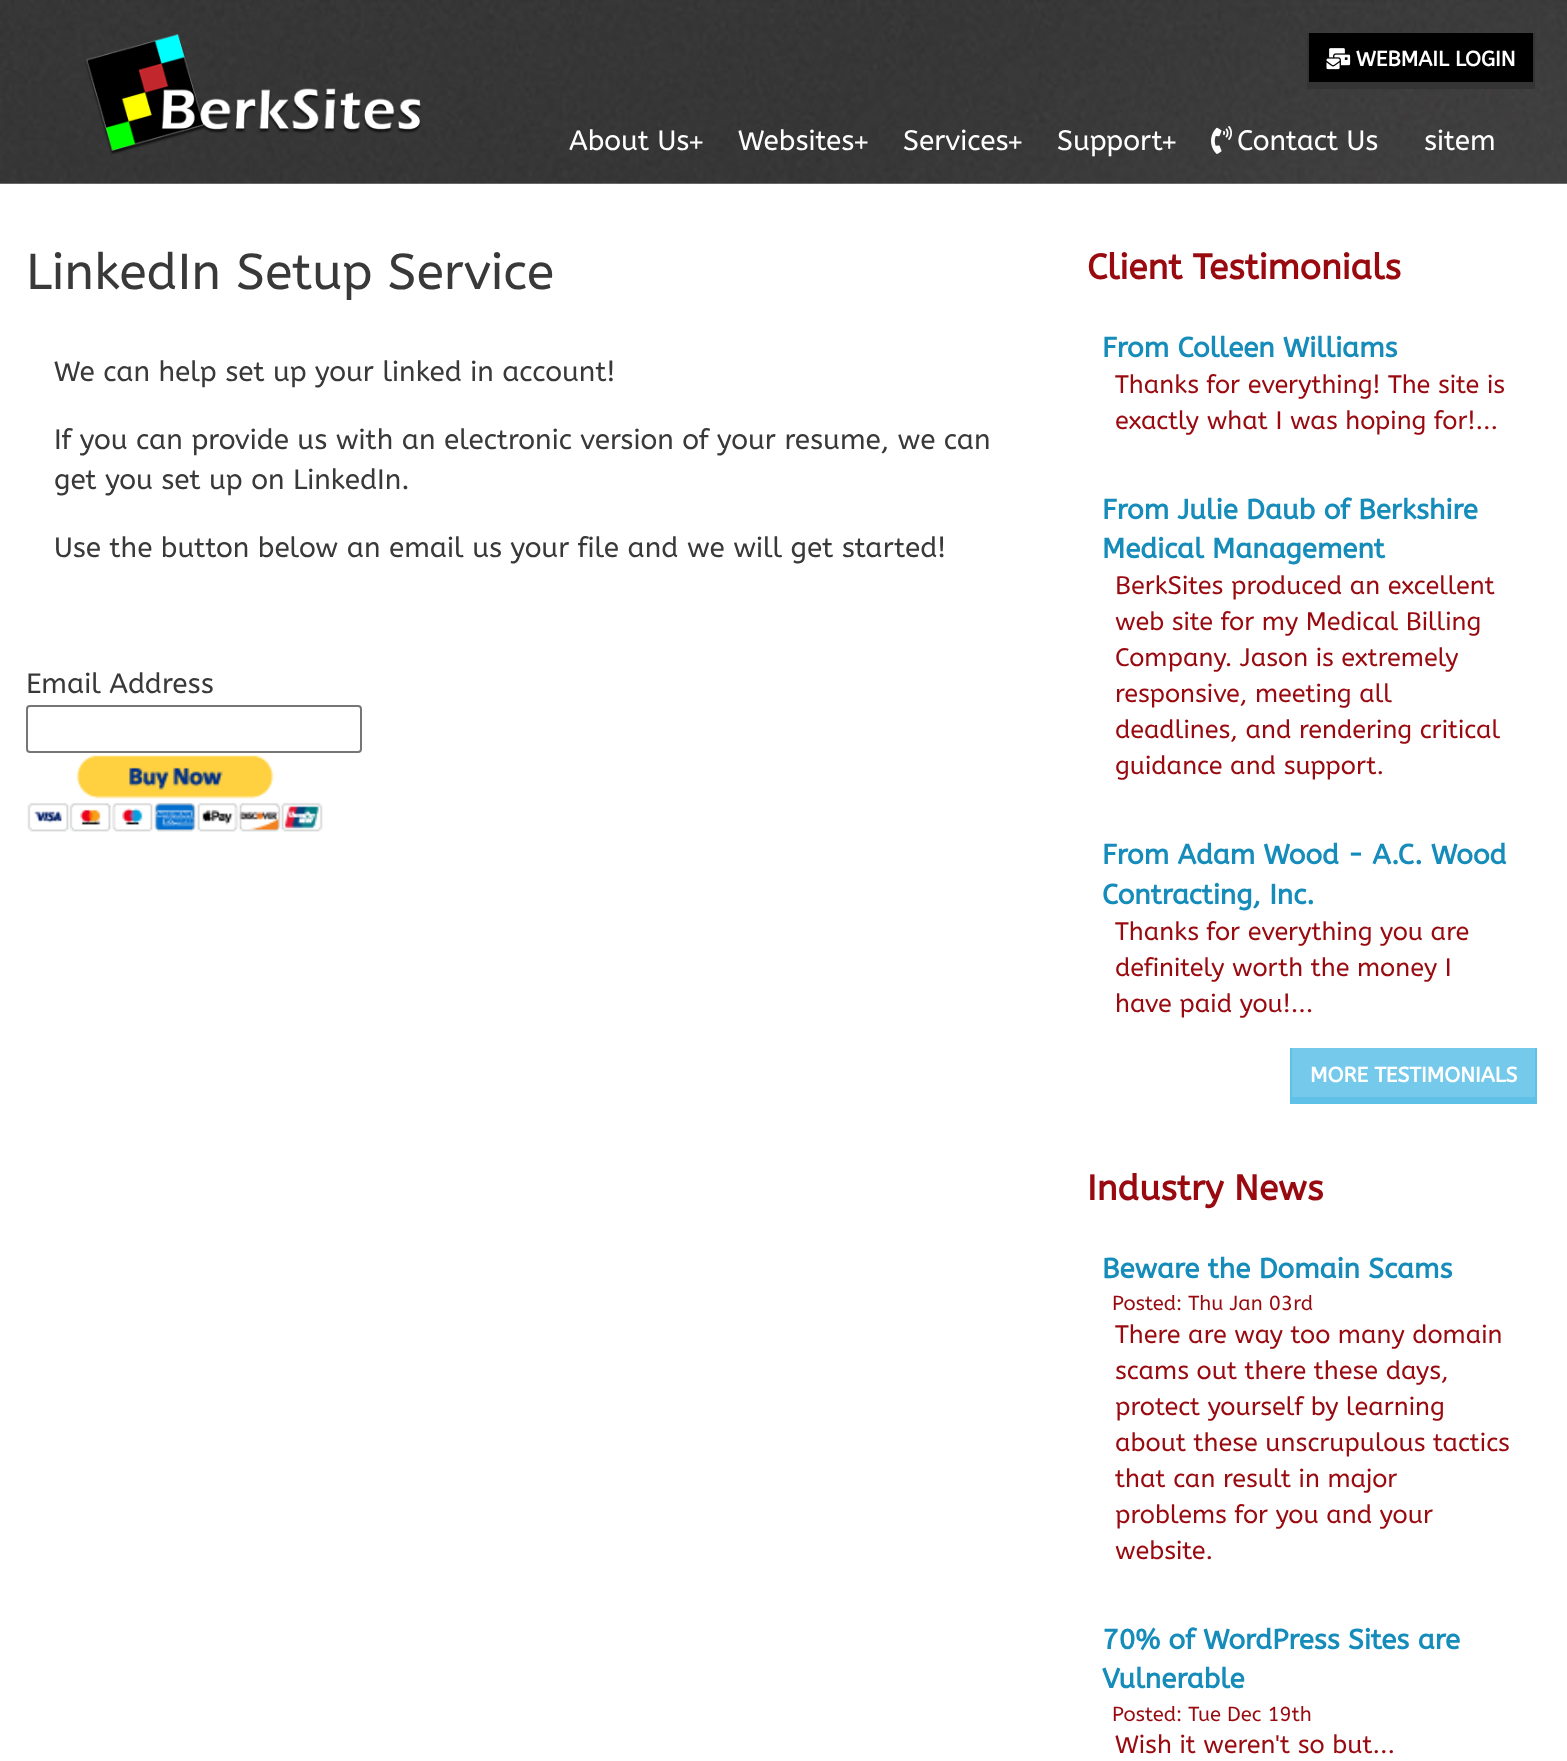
<!DOCTYPE html>
<meta charset="utf-8">
<style>body { margin: 0 } canvas { display: block }</style>
<canvas id="canvas" width="1567" height="1761"></canvas>
<img id="img1" src="images/1.png" hidden>
<img id="img2" src="images/2.png" hidden>
<img id="img3" src="images/3.png" hidden>
<img id="img4" src="images/4.png" hidden>
<img id="img5" src="images/5.png" hidden>
<script>
window.onload = function () {
    const canvas = document.getElementById('canvas');
    const context = canvas.getContext('2d');
    context.miterLimit = 4;
    context.fontKerning = 'normal';

    context.fillStyle = 'rgb(255, 255, 255)';
    context.fillRect(0, 0, 1567, 1761);
    context.drawImage(document.getElementById('img1'), 0, 0, 1567, 184);
    context.drawImage(document.getElementById('img2'), 85, 34, 336, 121);
    context.fillStyle = 'rgb(0, 0, 0)';
    context.fillRect(1309, 33, 224, 49);
    context.fillStyle = 'rgb(52, 52, 52)';
    context.fillRect(1533, 33, 2, 56);
    context.fillRect(1307, 82, 228, 7);
    context.fillRect(1307, 33, 2, 56);
    context.drawImage(document.getElementById('img3'), 1326, 48, 25, 22);
    context.drawImage(document.getElementById('img4'), 1211, 126, 21, 28);
    context.beginPath();
    context.roundRect(27, 706, 334, 46, 3);
    context.strokeStyle = 'rgb(118, 118, 118)';
    context.lineWidth = 2;
    context.stroke();
    context.drawImage(document.getElementById('img5'), 27, 755, 296, 77);
    context.fillStyle = 'rgb(117, 202, 235)';
    context.fillRect(1292, 1048, 243, 49);
    context.fillStyle = 'rgb(95, 193, 232)';
    context.fillRect(1535, 1048, 2, 56);
    context.fillRect(1290, 1097, 247, 7);
    context.fillRect(1290, 1048, 2, 56);
    context.font = 'bold 21px ABeeZee';
    context.fillStyle = 'rgb(255, 255, 255)';
    context.fillText('WEBMAIL LOGIN', 1356, 66);
    context.font = '28px ABeeZee';
    context.fillText('About Us', 569, 150);
    context.font = '24px DejaVu Sans Mono';
    context.fillText('+', 689, 150);
    context.font = '28px ABeeZee';
    context.fillText('Websites', 738, 150);
    context.font = '24px DejaVu Sans Mono';
    context.fillText('+', 854, 150);
    context.font = '28px ABeeZee';
    context.fillText('Services', 903, 150);
    context.font = '24px DejaVu Sans Mono';
    context.fillText('+', 1008, 150);
    context.font = '28px ABeeZee';
    context.fillText('Support', 1057, 150);
    context.font = '24px DejaVu Sans Mono';
    context.fillText('+', 1162, 150);
    context.font = '28px ABeeZee';
    context.fillText('Contact Us', 1237, 150);
    context.fillText('sitem', 1424, 150);
    context.font = '50.4px ABeeZee';
    context.fillStyle = 'rgb(57, 57, 57)';
    context.fillText('LinkedIn Setup Service', 26, 289);
    context.font = '28px ABeeZee';
    context.fillText('We can help set up your linked in account!', 54, 381);
    context.fillText('If you can provide us with an electronic version of your resume, we can', 54, 449);
    context.fillText('get you set up on LinkedIn.', 54, 489);
    context.fillText('Use the button below an email us your file and we will get started!', 54, 557);
    context.fillText('Email Address', 26, 693);
    context.font = 'bold 35.25px ABeeZee';
    context.fillStyle = 'rgb(152, 10, 15)';
    context.fillText('Client Testimonials', 1087, 279);
    context.font = 'bold 27.75px ABeeZee';
    context.fillStyle = 'rgb(21, 140, 186)';
    context.fillText('From Colleen Williams', 1102, 357);
    context.font = '25.25px ABeeZee';
    context.fillStyle = 'rgb(152, 10, 15)';
    context.fillText('Thanks for everything! The site is', 1115, 393);
    context.fillText('exactly what I was hoping for!...', 1115, 429);
    context.font = 'bold 27.75px ABeeZee';
    context.fillStyle = 'rgb(21, 140, 186)';
    context.fillText('From Julie Daub of Berkshire', 1102, 519);
    context.fillText('Medical Management', 1102, 558);
    context.font = '25.25px ABeeZee';
    context.fillStyle = 'rgb(152, 10, 15)';
    context.fillText('BerkSites produced an excellent', 1115, 594);
    context.fillText('web site for my Medical Billing', 1115, 630);
    context.fillText('Company. Jason is extremely', 1115, 666);
    context.fillText('responsive, meeting all', 1115, 702);
    context.fillText('deadlines, and rendering critical', 1115, 738);
    context.fillText('guidance and support.', 1115, 774);
    context.font = 'bold 27.75px ABeeZee';
    context.fillStyle = 'rgb(21, 140, 186)';
    context.fillText('From Adam Wood - A.C. Wood', 1102, 864);
    context.fillText('Contracting, Inc.', 1102, 904);
    context.font = '25.25px ABeeZee';
    context.fillStyle = 'rgb(152, 10, 15)';
    context.fillText('Thanks for everything you are', 1115, 940);
    context.fillText('definitely worth the money I', 1115, 976);
    context.fillText('have paid you!...', 1115, 1012);
    context.font = 'bold 21px ABeeZee';
    context.fillStyle = 'rgb(255, 255, 255)';
    context.fillText('MORE TESTIMONIALS', 1310, 1082);
    context.font = 'bold 35.25px ABeeZee';
    context.fillStyle = 'rgb(152, 10, 15)';
    context.fillText('Industry News', 1087, 1200);
    context.font = 'bold 27.75px ABeeZee';
    context.fillStyle = 'rgb(21, 140, 186)';
    context.fillText('Beware the Domain Scams', 1102, 1278);
    context.font = '20.25px ABeeZee';
    context.fillStyle = 'rgb(152, 10, 15)';
    context.fillText('Posted: Thu Jan 03rd', 1112, 1310);
    context.font = '25.25px ABeeZee';
    context.fillText('There are way too many domain', 1115, 1343);
    context.fillText('scams out there these days,', 1115, 1379);
    context.fillText('protect yourself by learning', 1115, 1415);
    context.fillText('about these unscrupulous tactics', 1115, 1451);
    context.fillText('that can result in major', 1115, 1487);
    context.fillText('problems for you and your', 1115, 1523);
    context.fillText('website.', 1115, 1559);
    context.font = 'bold 27.75px ABeeZee';
    context.fillStyle = 'rgb(21, 140, 186)';
    context.fillText('70% of WordPress Sites are', 1102, 1649);
    context.fillText('Vulnerable', 1102, 1688);
    context.font = '20.25px ABeeZee';
    context.fillStyle = 'rgb(152, 10, 15)';
    context.fillText('Posted: Tue Dec 19th', 1112, 1721);
    context.font = '25.25px ABeeZee';
    context.fillText('Wish it weren\'t so but...', 1115, 1753);
};
</script>
